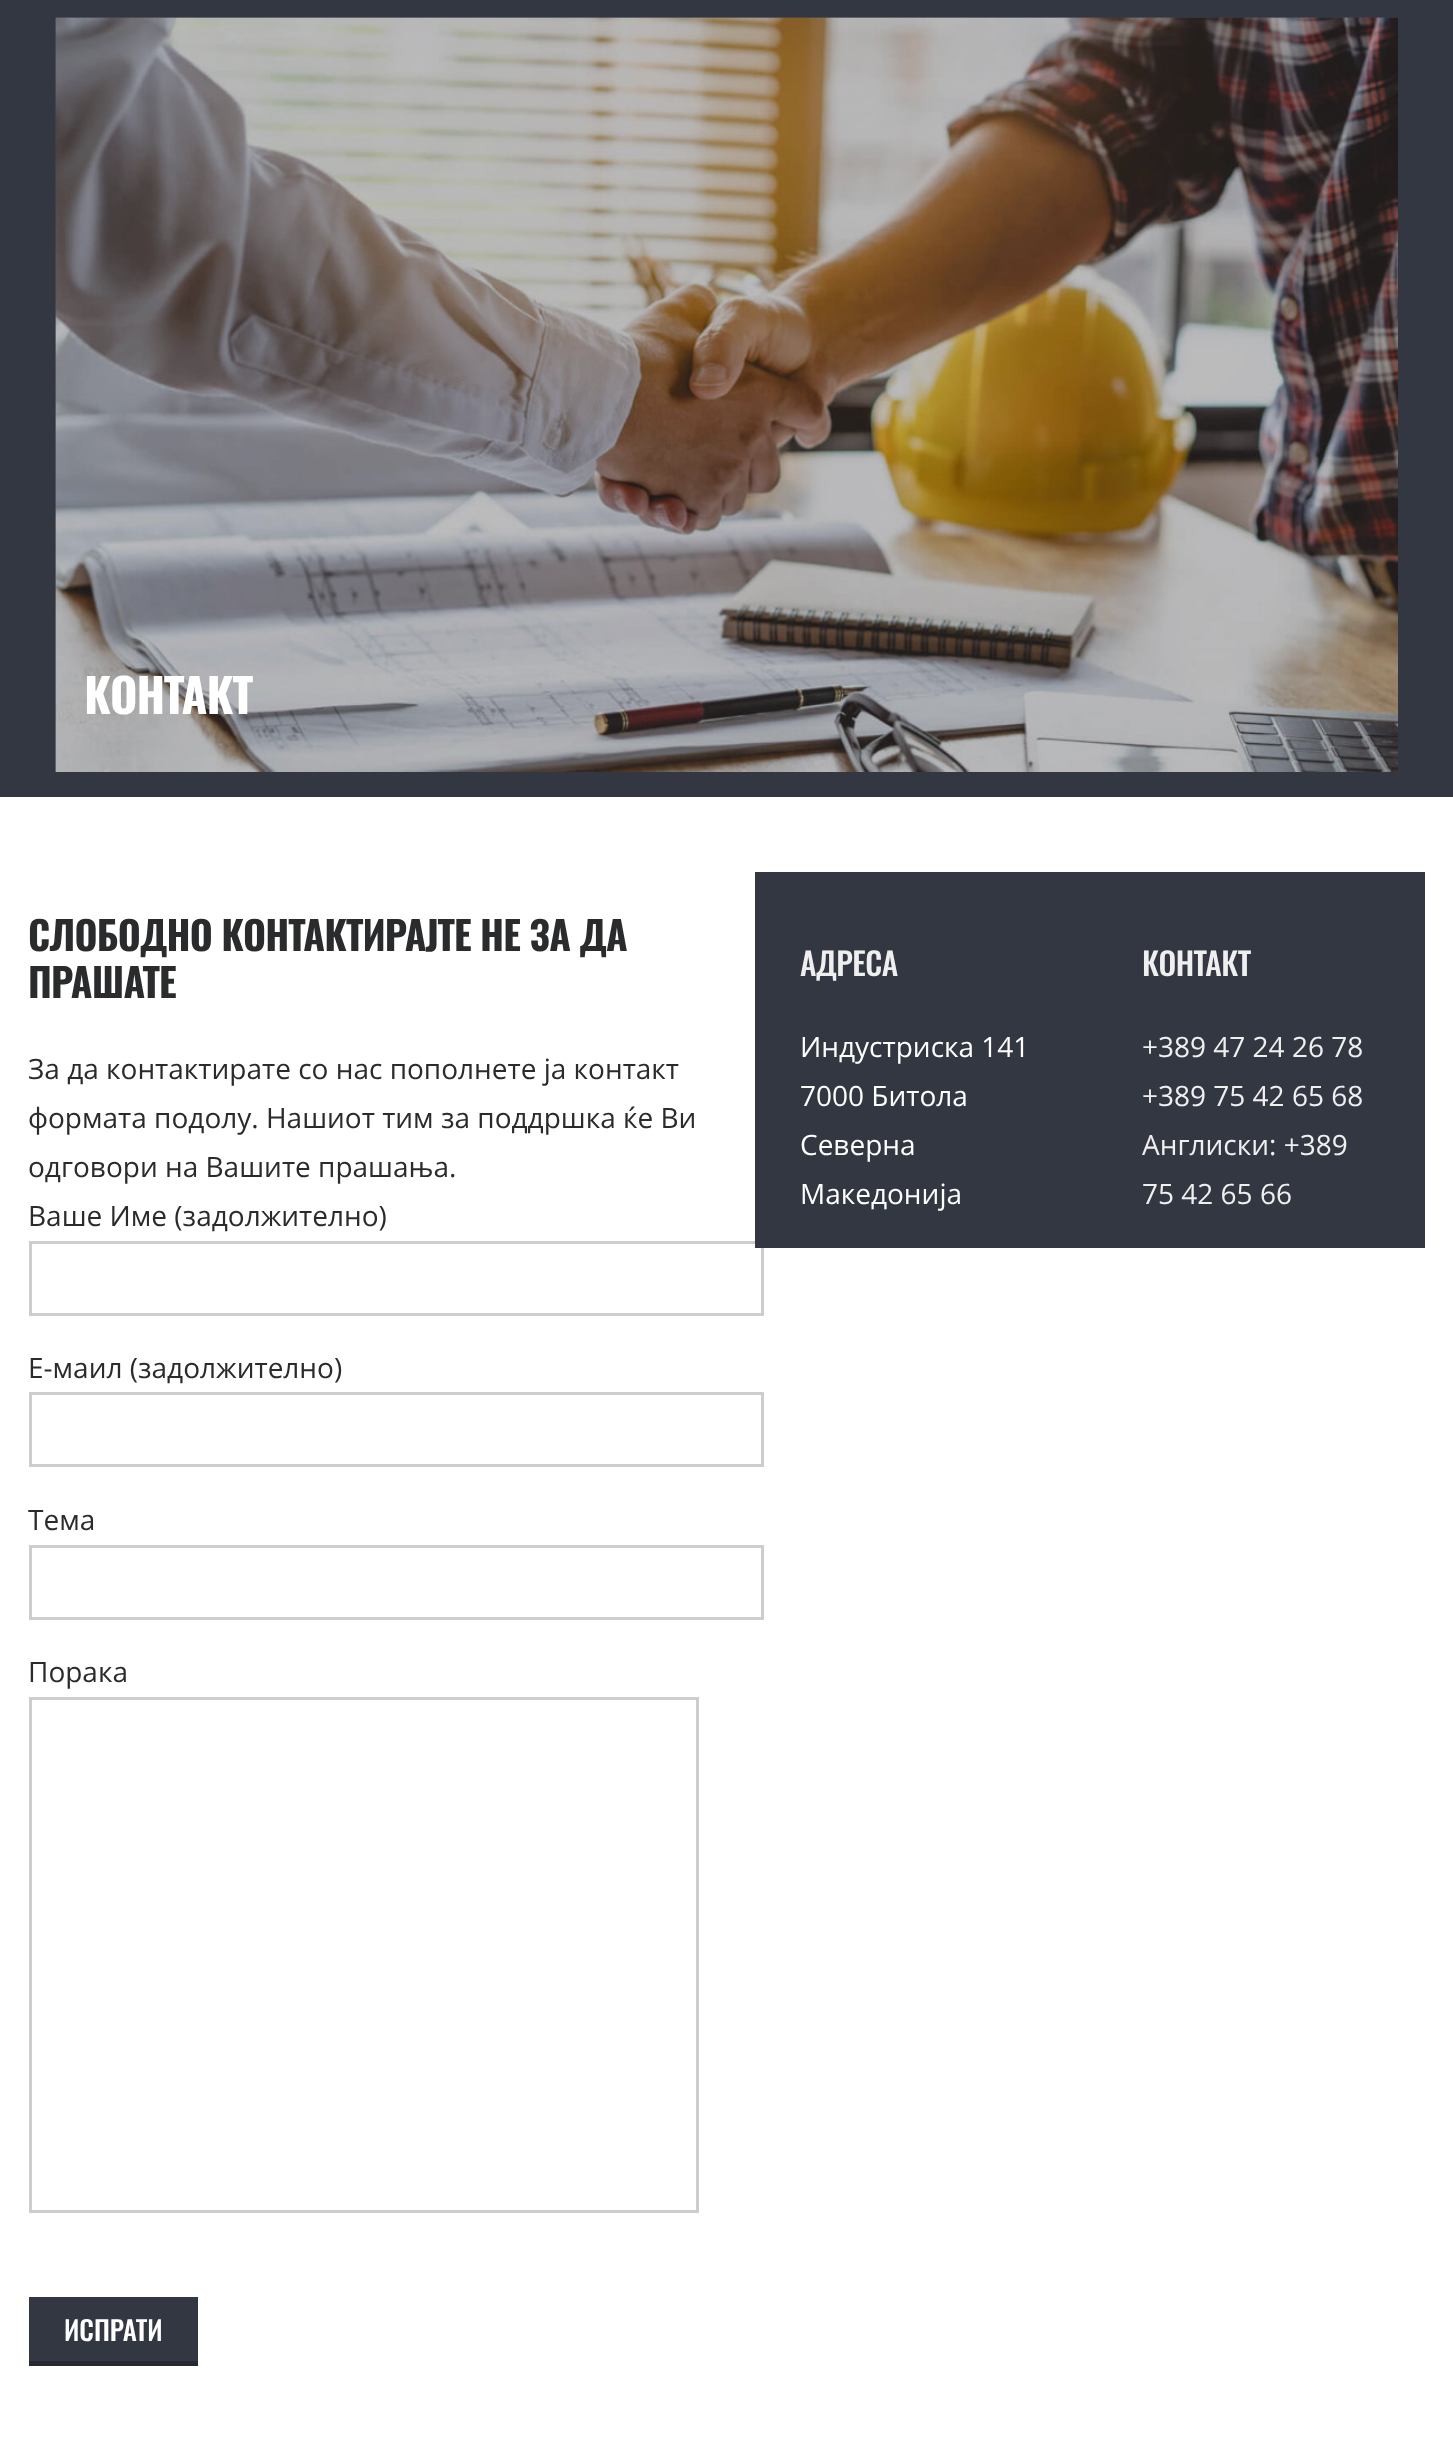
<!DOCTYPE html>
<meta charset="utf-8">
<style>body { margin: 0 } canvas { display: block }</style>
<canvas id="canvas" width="1453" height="2438"></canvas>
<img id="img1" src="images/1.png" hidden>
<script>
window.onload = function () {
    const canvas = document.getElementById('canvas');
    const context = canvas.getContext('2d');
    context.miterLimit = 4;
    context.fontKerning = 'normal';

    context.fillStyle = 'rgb(255, 255, 255)';
    context.fillRect(0, 0, 1453, 2438);
    context.fillStyle = 'rgb(50, 55, 66)';
    context.fillRect(0, 0, 1453, 797);
    context.drawImage(document.getElementById('img1'), 55, 17, 1343, 755);
    context.strokeStyle = 'rgb(205, 205, 205)';
    context.lineWidth = 3;
    context.strokeRect(30.5, 1242.5, 732, 72);
    context.strokeRect(30.5, 1393.5, 732, 72);
    context.strokeRect(30.5, 1546.5, 732, 72);
    context.strokeRect(30.5, 1698.5, 667, 513);
    context.fillRect(29, 2297, 169, 64);
    context.fillStyle = 'rgb(38, 41, 50)';
    context.fillRect(29, 2361, 169, 5);
    context.fillStyle = 'rgb(50, 55, 66)';
    context.fillRect(755, 872, 670, 376);
    context.letterSpacing = '-1px';
    context.font = 'bold 47px Oswald';
    context.fillStyle = 'rgb(255, 255, 255)';
    context.fillText('КОНТАКТ', 84, 714);
    context.letterSpacing = '-0.8px';
    context.font = 'bold 39.4px Oswald';
    context.fillStyle = 'rgb(42, 43, 45)';
    context.fillText('СЛОБОДНО КОНТАКТИРАЈТЕ НЕ ЗА ДА', 28, 951);
    context.fillText('ПРАШАТЕ', 28, 998);
    context.letterSpacing = '0px';
    context.font = '28px Open Sans';
    context.fillText('За да контактирате со нас пополнете ја контакт', 28, 1079);
    context.fillText('формата подолу. Нашиот тим за поддршка ќе Ви', 28, 1128);
    context.fillText('одговори на Вашите прашања.', 28, 1177);
    context.fillText('Ваше Име (задолжително)', 28, 1226);
    context.fillText('Е-маил (задолжително)', 28, 1378);
    context.fillText('Тема', 28, 1530);
    context.fillText('Порака', 28, 1682);
    context.font = '500 27px Oswald';
    context.fillStyle = 'rgb(255, 255, 255)';
    context.fillText('ИСПРАТИ', 64, 2341);
    context.letterSpacing = '-0.5px';
    context.font = '500 31.5px Oswald';
    context.fillStyle = 'rgb(239, 239, 240)';
    context.fillText('АДРЕСА', 800, 976);
    context.letterSpacing = '0px';
    context.font = '28px Open Sans';
    context.fillStyle = 'rgb(255, 255, 255)';
    context.fillText('Индустриска 141', 800, 1057);
    context.fillText('7000 Битола', 800, 1106);
    context.fillText('Северна', 800, 1155);
    context.fillText('Македонија', 800, 1204);
    context.letterSpacing = '-0.5px';
    context.font = '500 31.5px Oswald';
    context.fillStyle = 'rgb(239, 239, 240)';
    context.fillText('КОНТАКТ', 1142, 976);
    context.letterSpacing = '0px';
    context.font = '28px Open Sans';
    context.fillText('+389 47 24 26 78', 1142, 1057);
    context.fillText('+389 75 42 65 68', 1142, 1106);
    context.fillText('Англиски: +389', 1142, 1155);
    context.fillText('75 42 65 66', 1142, 1204);
};
</script>
